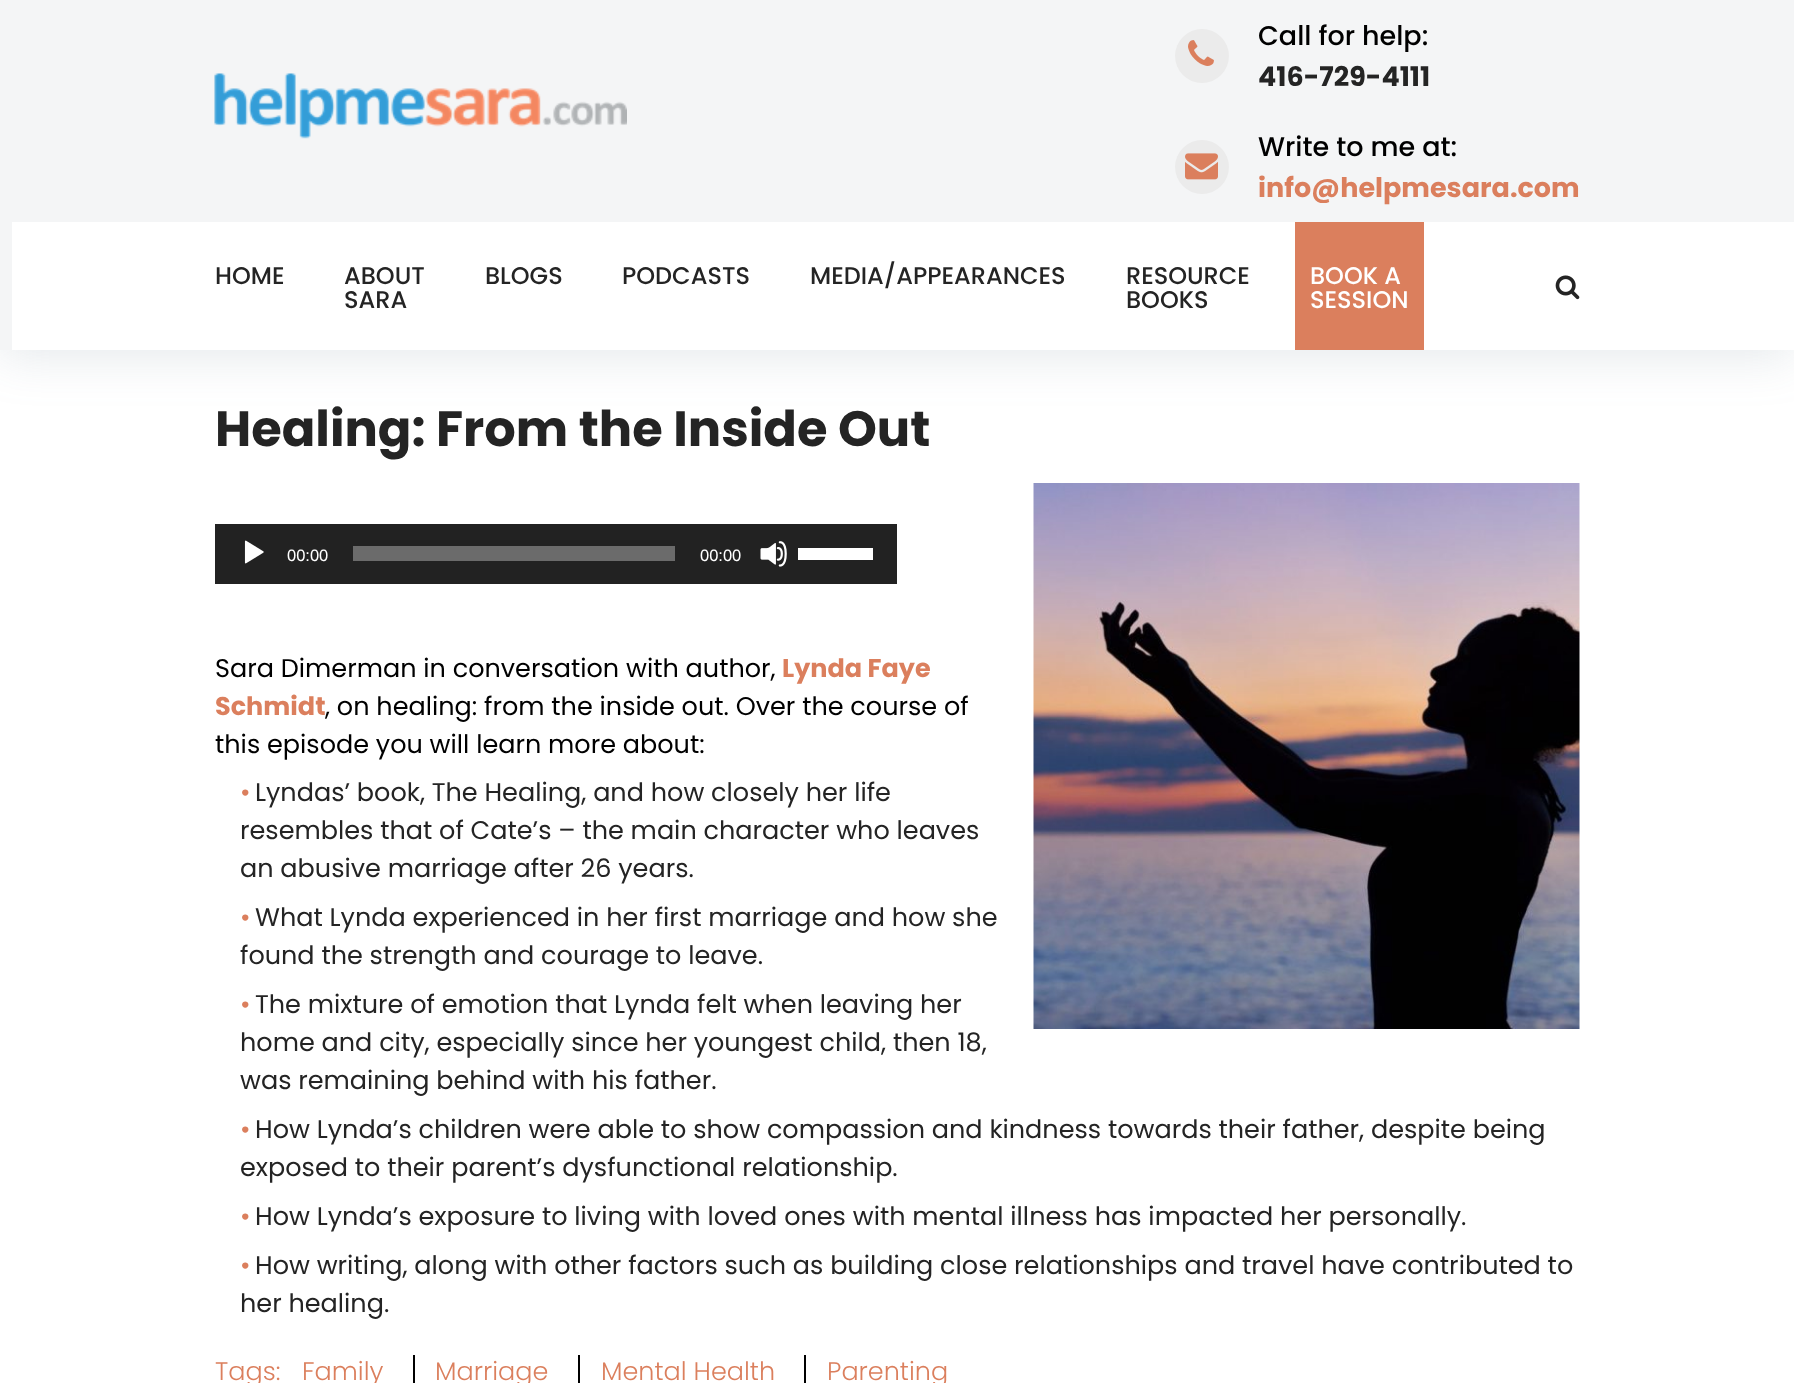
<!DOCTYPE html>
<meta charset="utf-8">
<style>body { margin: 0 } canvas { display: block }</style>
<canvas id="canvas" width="1794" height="1383"></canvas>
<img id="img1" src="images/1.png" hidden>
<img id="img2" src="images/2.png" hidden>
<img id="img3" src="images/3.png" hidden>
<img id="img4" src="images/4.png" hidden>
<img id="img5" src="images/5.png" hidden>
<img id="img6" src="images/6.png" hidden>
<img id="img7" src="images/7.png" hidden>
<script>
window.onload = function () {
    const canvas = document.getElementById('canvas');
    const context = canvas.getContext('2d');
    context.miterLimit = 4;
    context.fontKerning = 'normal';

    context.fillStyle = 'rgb(255, 255, 255)';
    context.fillRect(0, 0, 1794, 1383);
    context.fillStyle = 'rgba(103, 122, 141, 0.17)';
    context.filter = 'blur(24px)';
    context.beginPath();
    context.rect(0, 8, 1794, 349);
    context.fill();
    context.filter = 'none';
    context.fillStyle = 'rgb(244, 245, 246)';
    context.fillRect(0, 0, 1794, 350);
    context.drawImage(document.getElementById('img1'), 214, 73, 413, 66);
    context.fillStyle = 'rgb(235, 235, 235)';
    context.beginPath();
    context.arc(1202, 56, 27, 0, 2 * Math.PI);
    context.fill();
    context.drawImage(document.getElementById('img2'), 1188, 40, 26, 26);
    context.beginPath();
    context.arc(1202, 167, 27, 0, 2 * Math.PI);
    context.fill();
    context.drawImage(document.getElementById('img3'), 1185, 153, 33, 27);
    context.fillStyle = 'rgb(255, 255, 255)';
    context.fillRect(12, 222, 1782, 128);
    context.fillStyle = 'rgb(219, 127, 93)';
    context.fillRect(1295, 222, 129, 128);
    context.drawImage(document.getElementById('img4'), 1555, 275, 25, 25);
    context.drawImage(document.getElementById('img5'), 1033, 483, 547, 546);
    context.fillStyle = 'rgb(34, 34, 34)';
    context.fillRect(215, 524, 682, 60);
    context.drawImage(document.getElementById('img6'), 244, 540, 20, 24);
    context.fillStyle = 'rgb(107, 107, 107)';
    context.fillRect(353, 546, 322, 15);
    context.drawImage(document.getElementById('img7'), 760, 541, 27, 26);
    context.fillStyle = 'rgb(255, 255, 255)';
    context.fillRect(798, 548, 75, 12);
    context.fillStyle = 'rgb(0, 0, 0)';
    context.fillRect(413, 1355, 2, 28);
    context.fillRect(578, 1355, 2, 28);
    context.fillRect(804, 1355, 2, 28);
    context.font = '500 27px Poppins';
    context.fillText('Call for help:', 1258, 45);
    context.font = 'bold 27px Poppins';
    context.fillStyle = 'rgb(36, 36, 36)';
    context.fillText('416-729-4111', 1258, 86);
    context.font = '500 27px Poppins';
    context.fillStyle = 'rgb(0, 0, 0)';
    context.fillText('Write to me at:', 1258, 156);
    context.font = 'bold 27px Poppins';
    context.fillStyle = 'rgb(219, 127, 93)';
    context.fillText('info@helpmesara.com', 1258, 197);
    context.font = '500 24px Poppins';
    context.fillStyle = 'rgb(36, 36, 36)';
    context.fillText('HOME', 215, 284);
    context.fillText('ABOUT', 344, 284);
    context.fillText('SARA', 344, 308);
    context.fillText('BLOGS', 485, 284);
    context.fillText('PODCASTS', 622, 284);
    context.fillText('MEDIA/APPEARANCES', 810, 284);
    context.fillText('RESOURCE', 1126, 284);
    context.fillText('BOOKS', 1126, 308);
    context.fillStyle = 'rgb(255, 255, 255)';
    context.fillText('BOOK A', 1310, 284);
    context.fillText('SESSION', 1310, 308);
    context.font = 'bold 49.5px Poppins';
    context.fillStyle = 'rgb(36, 36, 36)';
    context.fillText('Healing: From the Inside Out', 215, 446);
    context.font = '16.5px Liberation Sans';
    context.fillStyle = 'rgb(255, 255, 255)';
    context.fillText('00:00', 287, 561);
    context.fillText('00:00', 700, 561);
    context.font = '25.5px Poppins';
    context.fillStyle = 'rgb(0, 0, 0)';
    context.fillText('Sara Dimerman in conversation with author,', 215, 677);
    context.font = 'bold 25.5px Poppins';
    context.fillStyle = 'rgb(219, 127, 93)';
    context.fillText('Lynda Faye', 782, 677);
    context.fillText('Schmidt', 215, 715);
    context.font = '25.5px Poppins';
    context.fillStyle = 'rgb(0, 0, 0)';
    context.fillText(', on healing: from the inside out. Over the course of', 325, 715);
    context.fillText('this episode you will learn more about:', 215, 753);
    context.fillStyle = 'rgb(219, 127, 93)';
    context.fillText('•', 240, 801);
    context.fillStyle = 'rgb(36, 36, 36)';
    context.fillText('Lyndas’ book, The Healing, and how closely her life', 255, 801);
    context.fillText('resembles that of Cate’s – the main character who leaves', 240, 839);
    context.fillText('an abusive marriage after 26 years.', 240, 877);
    context.fillStyle = 'rgb(219, 127, 93)';
    context.fillText('•', 240, 926);
    context.fillStyle = 'rgb(36, 36, 36)';
    context.fillText('What Lynda experienced in her first marriage and how she', 255, 926);
    context.fillText('found the strength and courage to leave.', 240, 964);
    context.fillStyle = 'rgb(219, 127, 93)';
    context.fillText('•', 240, 1013);
    context.fillStyle = 'rgb(36, 36, 36)';
    context.fillText('The mixture of emotion that Lynda felt when leaving her', 255, 1013);
    context.fillText('home and city, especially since her youngest child, then 18,', 240, 1051);
    context.fillText('was remaining behind with his father.', 240, 1089);
    context.fillStyle = 'rgb(219, 127, 93)';
    context.fillText('•', 240, 1138);
    context.fillStyle = 'rgb(36, 36, 36)';
    context.fillText('How Lynda’s children were able to show compassion and kindness towards their father, despite being', 255, 1138);
    context.fillText('exposed to their parent’s dysfunctional relationship.', 240, 1176);
    context.fillStyle = 'rgb(219, 127, 93)';
    context.fillText('•', 240, 1225);
    context.fillStyle = 'rgb(36, 36, 36)';
    context.fillText('How Lynda’s exposure to living with loved ones with mental illness has impacted her personally.', 255, 1225);
    context.fillStyle = 'rgb(219, 127, 93)';
    context.fillText('•', 240, 1274);
    context.fillStyle = 'rgb(36, 36, 36)';
    context.fillText('How writing, along with other factors such as building close relationships and travel have contributed to', 255, 1274);
    context.fillText('her healing.', 240, 1312);
    context.font = '300 25.5px Poppins';
    context.fillStyle = 'rgb(219, 127, 93)';
    context.fillText('Tags:', 215, 1380);
    context.fillText('Family', 302, 1380);
    context.fillText('Marriage', 435, 1380);
    context.fillText('Mental Health', 601, 1380);
    context.fillText('Parenting', 827, 1380);
};
</script>
